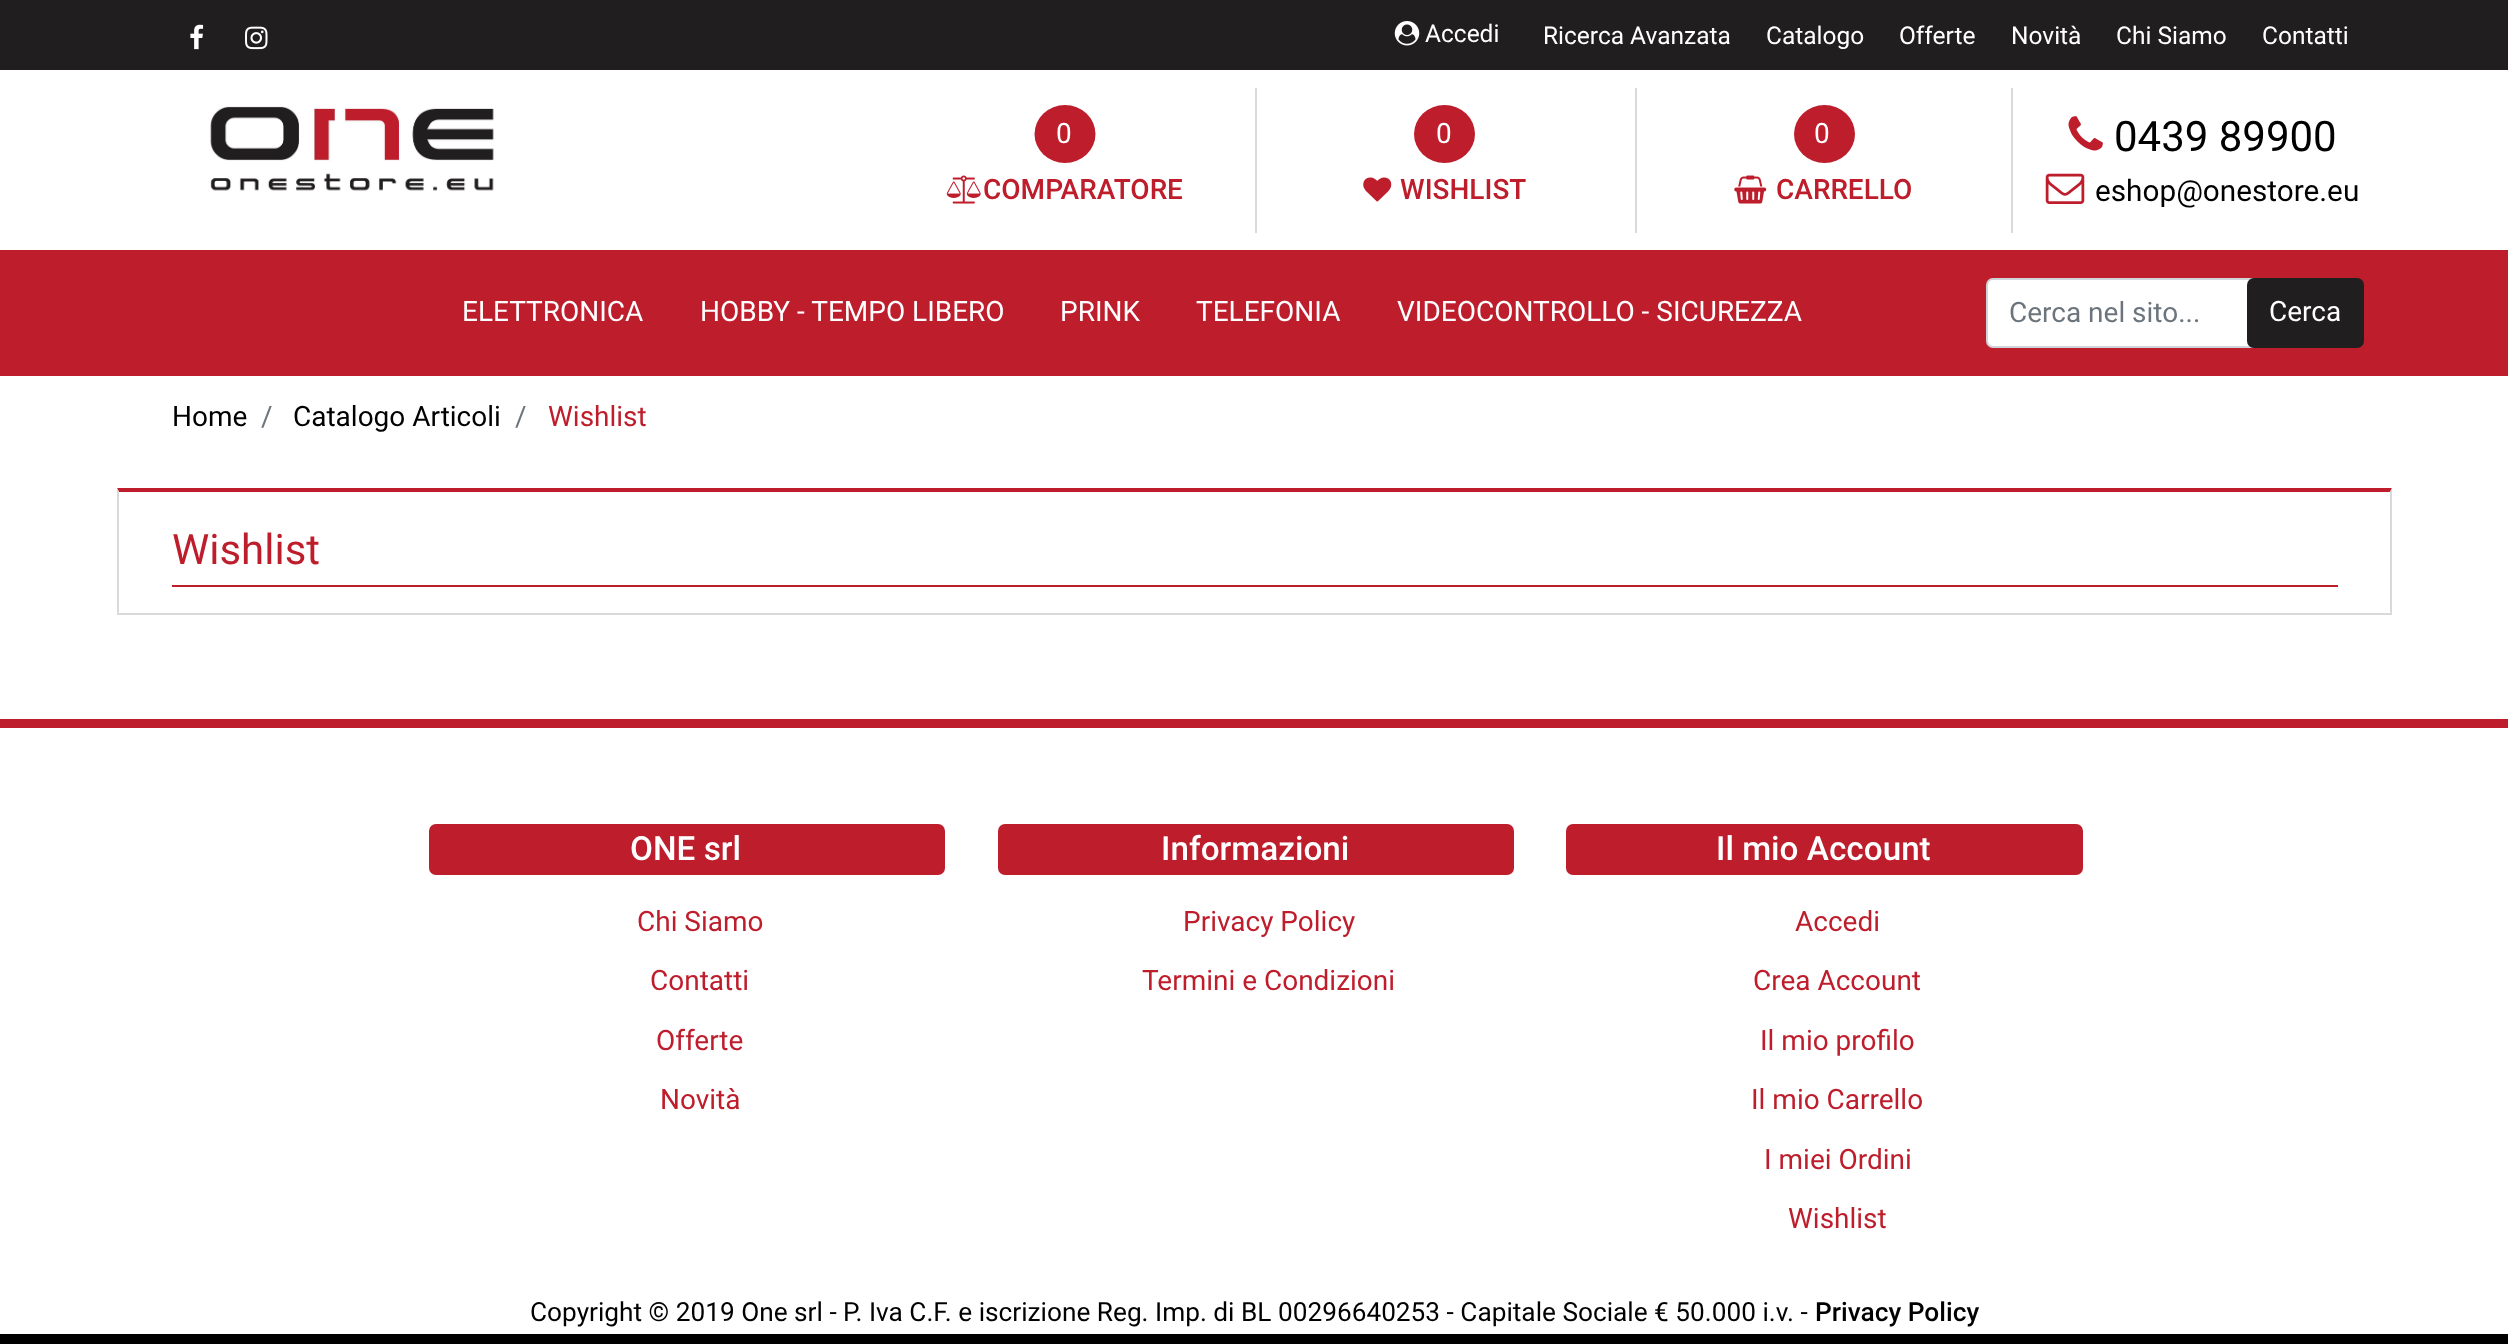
<!DOCTYPE html>
<meta charset="utf-8">
<style>body { margin: 0 } canvas { display: block }</style>
<canvas id="canvas" width="2508" height="1344"></canvas>
<img id="img1" src="images/1.png" hidden>
<img id="img2" src="images/2.png" hidden>
<img id="img3" src="images/3.png" hidden>
<img id="img4" src="images/4.png" hidden>
<img id="img5" src="images/5.png" hidden>
<img id="img6" src="images/6.png" hidden>
<img id="img7" src="images/7.png" hidden>
<img id="img8" src="images/8.png" hidden>
<img id="img9" src="images/9.png" hidden>
<script>
window.onload = function () {
    const canvas = document.getElementById('canvas');
    const context = canvas.getContext('2d');
    context.miterLimit = 4;
    context.fontKerning = 'normal';

    context.fillStyle = 'rgb(255, 255, 255)';
    context.fillRect(0, 0, 2508, 1344);
    context.fillStyle = 'rgb(32, 30, 31)';
    context.fillRect(0, 0, 2508, 70);
    context.drawImage(document.getElementById('img1'), 190, 24, 14, 26);
    context.drawImage(document.getElementById('img2'), 245, 26, 23, 24);
    context.drawImage(document.getElementById('img3'), 1394, 21, 26, 25);
    context.drawImage(document.getElementById('img4'), 210, 106, 284, 85);
    context.fillStyle = 'rgb(190, 29, 44)';
    context.beginPath();
    context.ellipse(1065, 134, 30.5, 29, 0, 0, 2 * Math.PI);
    context.fill();
    context.drawImage(document.getElementById('img5'), 946, 175, 35, 29);
    context.fillStyle = 'rgb(217, 217, 217)';
    context.fillRect(1255, 88, 2, 145);
    context.fillStyle = 'rgb(190, 29, 44)';
    context.beginPath();
    context.ellipse(1444.5, 134, 30.5, 29, 0, 0, 2 * Math.PI);
    context.fill();
    context.drawImage(document.getElementById('img6'), 1363, 177, 29, 25);
    context.fillStyle = 'rgb(217, 217, 217)';
    context.fillRect(2011, 88, 2, 145);
    context.fillRect(1635, 88, 2, 145);
    context.fillStyle = 'rgb(190, 29, 44)';
    context.beginPath();
    context.ellipse(1824.5, 134, 30.5, 29, 0, 0, 2 * Math.PI);
    context.fill();
    context.drawImage(document.getElementById('img7'), 1734, 175, 33, 29);
    context.drawImage(document.getElementById('img8'), 2068, 116, 35, 35);
    context.drawImage(document.getElementById('img9'), 2045, 173, 40, 31);
    context.fillRect(0, 250, 2508, 126);
    context.fillStyle = 'rgb(255, 255, 255)';
    context.beginPath();
    context.roundRect(1987, 279, 278, 68, 6);
    context.fill();
    context.strokeStyle = 'rgb(206, 212, 218)';
    context.lineWidth = 2;
    context.stroke();
    context.fillStyle = 'rgb(32, 30, 31)';
    context.beginPath();
    context.roundRect(2247, 278, 117, 70, 7);
    context.fill();
    context.fillStyle = 'rgb(190, 29, 44)';
    context.beginPath();
    context.moveTo(117, 488);
    context.lineTo(2392, 488);
    context.lineTo(2390, 492);
    context.lineTo(119, 492);
    context.closePath();
    context.fill();
    context.fillStyle = 'rgb(217, 217, 217)';
    context.beginPath();
    context.moveTo(2392, 488);
    context.lineTo(2392, 614);
    context.lineTo(2390, 612);
    context.lineTo(2390, 492);
    context.closePath();
    context.fill();
    context.fillRect(117, 613, 2275, 2);
    context.beginPath();
    context.moveTo(117, 614);
    context.lineTo(117, 488);
    context.lineTo(119, 492);
    context.lineTo(119, 612);
    context.closePath();
    context.fill();
    context.fillStyle = 'rgb(190, 29, 44)';
    context.fillRect(172, 585, 2166, 2);
    context.fillRect(0, 719, 2508, 9);
    context.beginPath();
    context.roundRect(429, 824, 516, 51, 7);
    context.fill();
    context.beginPath();
    context.roundRect(998, 824, 516, 51, 7);
    context.fill();
    context.beginPath();
    context.roundRect(1566, 824, 517, 51, 7);
    context.fill();
    context.fillStyle = 'rgb(0, 0, 0)';
    context.fillRect(0, 1334, 2508, 10);
    context.font = '24.5px Roboto';
    context.fillStyle = 'rgb(255, 255, 255)';
    context.fillText('Accedi', 1425, 42);
    context.fillText('Ricerca Avanzata', 1543, 44);
    context.fillText('Catalogo', 1766, 44);
    context.fillText('Offerte', 1899, 44);
    context.fillText('Novità', 2011, 44);
    context.fillText('Chi Siamo', 2116, 44);
    context.fillText('Contatti', 2262, 44);
    context.font = '28px Roboto';
    context.fillText('0', 1056, 143);
    context.font = '500 28px Roboto';
    context.fillStyle = 'rgb(190, 29, 44)';
    context.fillText('COMPARATORE', 983, 199);
    context.font = '28px Roboto';
    context.fillStyle = 'rgb(255, 255, 255)';
    context.fillText('0', 1436, 143);
    context.font = '500 28px Roboto';
    context.fillStyle = 'rgb(190, 29, 44)';
    context.fillText('WISHLIST', 1400, 199);
    context.font = '28px Roboto';
    context.fillStyle = 'rgb(255, 255, 255)';
    context.fillText('0', 1814, 143);
    context.font = '500 28px Roboto';
    context.fillStyle = 'rgb(190, 29, 44)';
    context.fillText('CARRELLO', 1776, 199);
    context.font = '42px Roboto';
    context.fillStyle = 'rgb(0, 0, 0)';
    context.fillText('0439 89900', 2114, 151);
    context.font = '29.75px Roboto';
    context.fillText('eshop@onestore.eu', 2095, 201);
    context.font = '28px Roboto';
    context.fillStyle = 'rgb(255, 255, 255)';
    context.fillText('ELETTRONICA', 462, 321);
    context.fillText('HOBBY - TEMPO LIBERO', 700, 321);
    context.fillText('PRINK', 1060, 321);
    context.fillText('TELEFONIA', 1196, 321);
    context.fillText('VIDEOCONTROLLO - SICUREZZA', 1397, 321);
    context.fillStyle = 'rgb(108, 117, 125)';
    context.fillText('Cerca nel sito...', 2009, 322);
    context.fillStyle = 'rgb(255, 255, 255)';
    context.fillText('Cerca', 2269, 321);
    context.fillStyle = 'rgb(0, 0, 0)';
    context.fillText('Home', 172, 426);
    context.fillStyle = 'rgb(108, 117, 125)';
    context.fillText('/', 261, 426);
    context.fillStyle = 'rgb(0, 0, 0)';
    context.fillText('Catalogo Articoli', 293, 426);
    context.fillStyle = 'rgb(108, 117, 125)';
    context.fillText('/', 515, 426);
    context.fillStyle = 'rgb(190, 29, 44)';
    context.fillText('Wishlist', 548, 426);
    context.font = '42px Roboto';
    context.fillText('Wishlist', 172, 564);
    context.font = '500 33.25px Roboto';
    context.fillStyle = 'rgb(255, 255, 255)';
    context.fillText('ONE srl', 630, 860);
    context.font = '28px Roboto';
    context.fillStyle = 'rgb(190, 29, 44)';
    context.fillText('Chi Siamo', 637, 931);
    context.fillText('Contatti', 650, 990);
    context.fillText('Offerte', 656, 1050);
    context.fillText('Novità', 660, 1109);
    context.font = '500 33.25px Roboto';
    context.fillStyle = 'rgb(255, 255, 255)';
    context.fillText('Informazioni', 1161, 860);
    context.font = '28px Roboto';
    context.fillStyle = 'rgb(190, 29, 44)';
    context.fillText('Privacy Policy', 1183, 931);
    context.fillText('Termini e Condizioni', 1142, 990);
    context.font = '500 33.25px Roboto';
    context.fillStyle = 'rgb(255, 255, 255)';
    context.fillText('Il mio Account', 1716, 860);
    context.font = '28px Roboto';
    context.fillStyle = 'rgb(190, 29, 44)';
    context.fillText('Accedi', 1795, 931);
    context.fillText('Crea Account', 1753, 990);
    context.fillText('Il mio profilo', 1760, 1050);
    context.fillText('Il mio Carrello', 1751, 1109);
    context.fillText('I miei Ordini', 1764, 1169);
    context.fillText('Wishlist', 1788, 1228);
    context.font = '26.25px Roboto';
    context.fillStyle = 'rgb(0, 0, 0)';
    context.fillText('Copyright © 2019 One srl - P. Iva C.F. e iscrizione Reg. Imp. di BL 00296640253 - Capitale Sociale € 50.000 i.v. -', 530, 1321);
    context.font = '500 26.25px Roboto';
    context.fillText('Privacy Policy', 1815, 1321);
};
</script>
